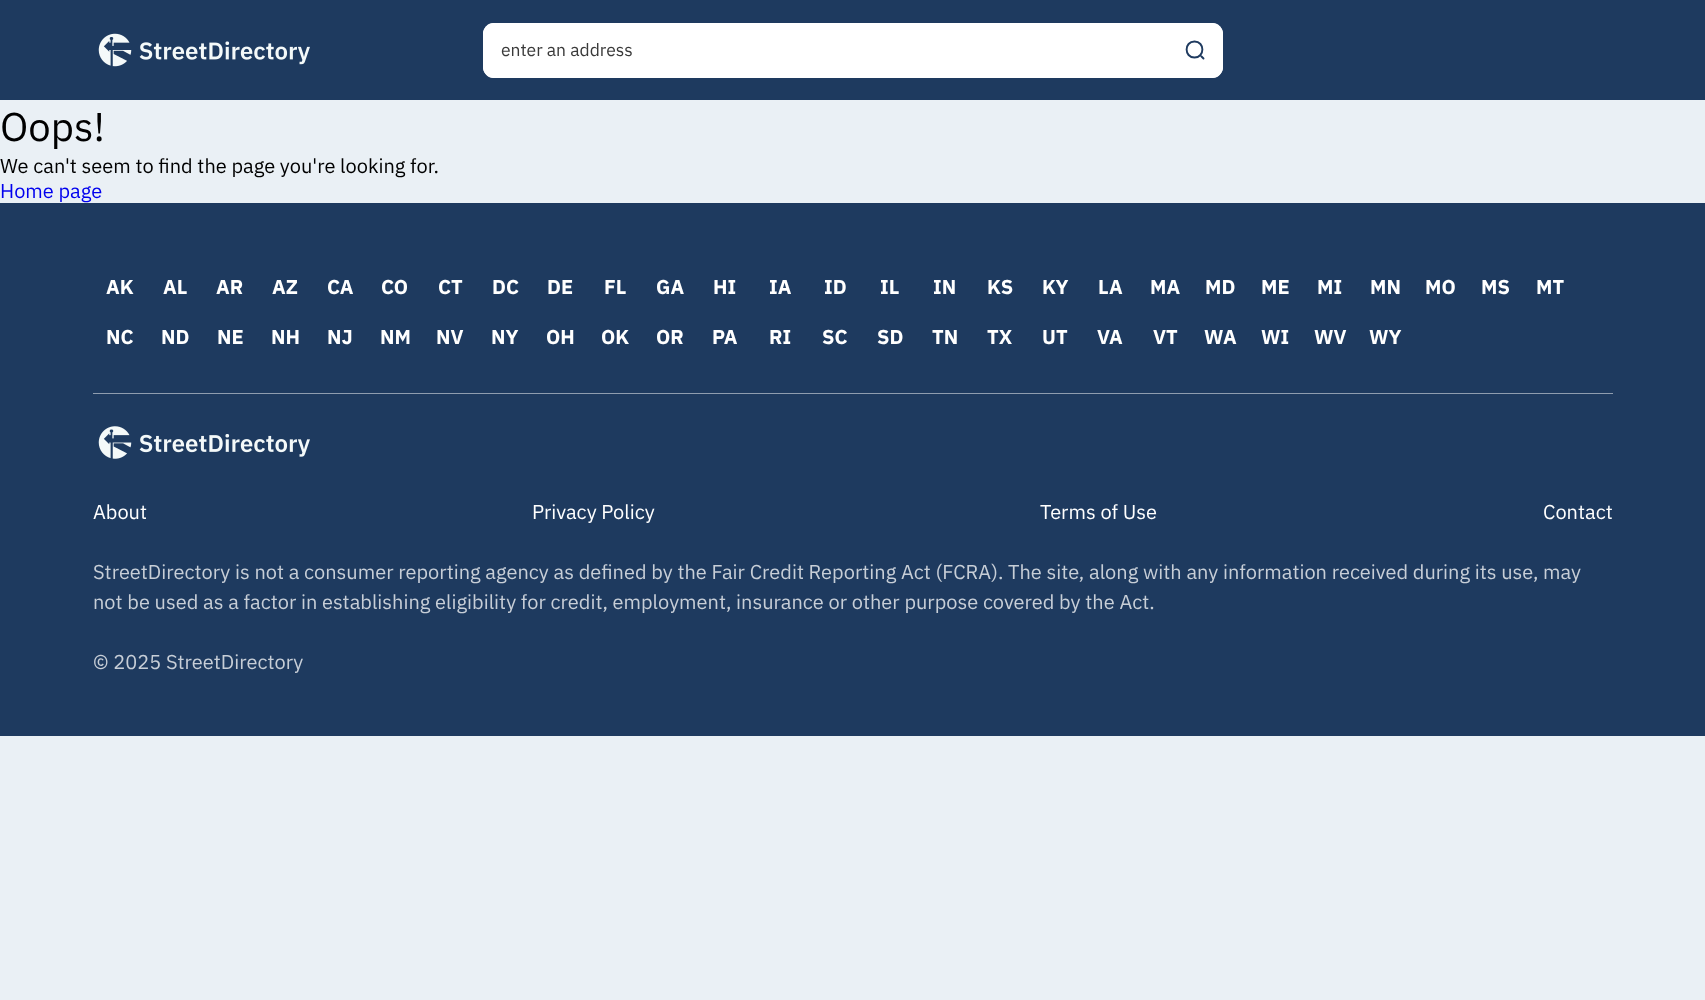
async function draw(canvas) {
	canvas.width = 1705;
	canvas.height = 1000;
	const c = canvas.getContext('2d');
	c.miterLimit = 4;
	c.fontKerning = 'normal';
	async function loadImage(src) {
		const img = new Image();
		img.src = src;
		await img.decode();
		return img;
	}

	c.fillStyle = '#eaf0f5';
	c.fillRect(0, 0, 1705, 1000);
	c.fillStyle = '#1e3a5f';
	c.fillRect(0, 0, 1705, 100);
	c.drawImage(await loadImage('img1.png'), 98, 33, 212, 34);
	c.fillStyle = '#fff';
	c.beginPath();
	c.roundRect(483, 23, 740, 55, 11);
	c.fill();
	c.beginPath();
	c.roundRect(483, 23, 683, 55, 11);
	c.fill();
	c.font = '17.5px IBM Plex Sans';
	c.fillStyle = '#3a3a3a';
	c.fillText('enter an address', 501, 56);
	c.fillStyle = '#fff';
	c.beginPath();
	c.roundRect(1168, 23, 55, 55, 11);
	c.fill();
	c.beginPath();
	c.moveTo(1194.5, 57.5);
	c.bezierCurveTo(1205, 57.5, 1205, 41.5, 1194.5, 41.5);
	c.bezierCurveTo(1184, 41.5, 1184, 57.5, 1194.5, 57.5);
	c.closePath();
	c.moveTo(1203.5, 58.5);
	c.lineTo(1201.5, 56.5);
	c.strokeStyle = '#1e3a5f';
	c.lineWidth = 1.9;
	c.lineCap = 'round';
	c.lineJoin = 'round';
	c.stroke();
	c.font = '40px IBM Plex Sans';
	c.fillStyle = '#000';
	c.fillText('Oops!', 0, 141);
	c.font = '20px IBM Plex Sans';
	c.fillText('We can\'t seem to find the page you\'re looking for.', 0, 173);
	c.fillStyle = '#00e';
	c.fillText('Home page', 0, 198);
	c.fillStyle = '#1e3a5f';
	c.fillRect(0, 203, 1705, 533);
	c.font = 'bold 20px IBM Plex Sans';
	c.fillStyle = '#fff';
	for (const [text, x, y] of [
		['AK', 106, 294],
		['AL', 163, 294],
		['AR', 216, 294],
		['AZ', 272, 294],
		['CA', 327, 294],
		['CO', 381, 294],
		['CT', 438, 294],
		['DC', 492, 294],
		['DE', 547, 294],
		['FL', 604, 294],
		['GA', 656, 294],
		['HI', 713, 294],
		['IA', 769, 294],
		['ID', 824, 294],
		['IL', 880, 294],
		['IN', 933, 294],
		['KS', 987, 294],
		['KY', 1042, 294],
		['LA', 1098, 294],
		['MA', 1150, 294],
		['MD', 1205, 294],
		['ME', 1261, 294],
		['MI', 1317, 294],
		['MN', 1370, 294],
		['MO', 1425, 294],
		['MS', 1481, 294],
		['MT', 1536, 294],
		['NC', 106, 344],
		['ND', 161, 344],
		['NE', 217, 344],
		['NH', 271, 344],
		['NJ', 327, 344],
		['NM', 380, 344],
		['NV', 436, 344],
		['NY', 491, 344],
		['OH', 546, 344],
		['OK', 601, 344],
		['OR', 656, 344],
		['PA', 712, 344],
		['RI', 769, 344],
		['SC', 822, 344],
		['SD', 877, 344],
		['TN', 932, 344],
		['TX', 987, 344],
		['UT', 1042, 344],
		['VA', 1097, 344],
		['VT', 1153, 344],
		['WA', 1204, 344],
		['WI', 1261, 344],
		['WV', 1314, 344],
		['WY', 1369, 344],
	]) {
		c.fillText(text, x, y);
	}
	c.fillStyle = '#8f9daf';
	c.fillRect(93, 393, 1520, 1);
	c.drawImage(await loadImage('img2.png'), 98, 426, 212, 33);
	c.font = '20px IBM Plex Sans';
	c.fillStyle = '#fff';
	for (const [text, x, y] of [
		['About', 93, 519],
		['Privacy Policy', 532, 519],
		['Terms of Use', 1040, 519],
		['Contact', 1543, 519],
	]) {
		c.fillText(text, x, y);
	}
	c.fillStyle = '#c7ced7';
	for (const [text, x, y] of [
		['StreetDirectory is not a consumer reporting agency as defined by the Fair Credit Reporting Act (FCRA). The site, along with any information received during its use, may', 93, 579],
		['not be used as a factor in establishing eligibility for credit, employment, insurance or other purpose covered by the Act.', 93, 609],
		['© 2025 StreetDirectory', 93, 669],
	]) {
		c.fillText(text, x, y);
	}
}

draw(document.querySelector('canvas'));
